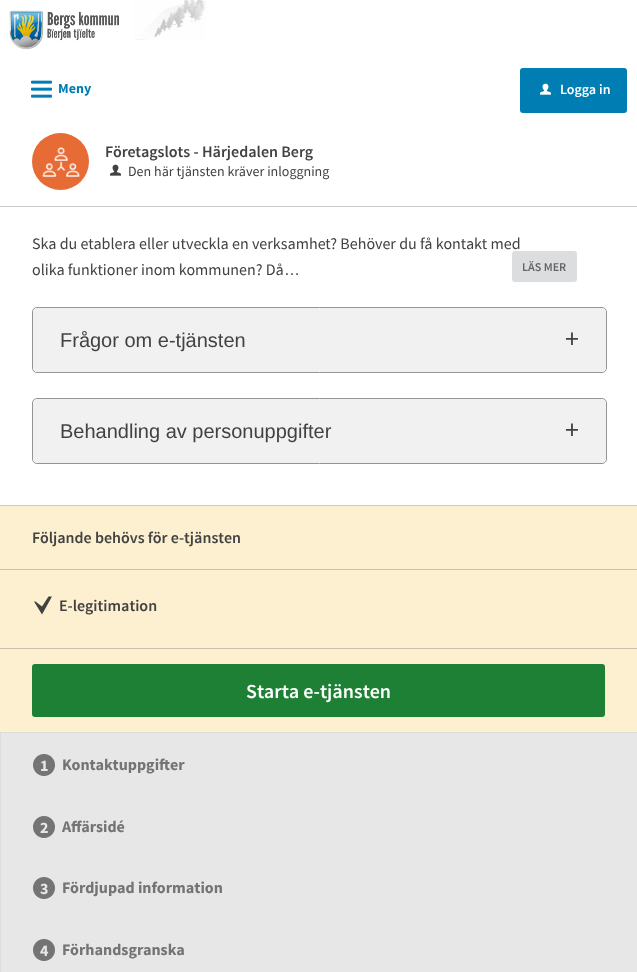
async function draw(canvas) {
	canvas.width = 637;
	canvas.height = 972;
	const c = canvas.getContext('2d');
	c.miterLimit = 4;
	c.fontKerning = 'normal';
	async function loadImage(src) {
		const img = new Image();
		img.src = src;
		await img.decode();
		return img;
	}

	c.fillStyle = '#fff';
	c.fillRect(0, 0, 637, 972);
	c.drawImage(await loadImage('img1.png'), 9, 10, 110, 40);
	c.drawImage(await loadImage('img2.png'), 134, 0, 72, 40);
	c.drawImage(await loadImage('img3.png'), 31, 80, 21, 18);
	c.font = 'bold 14px Source Sans Pro';
	c.fillStyle = '#007eb3';
	c.fillText('Meny', 58, 93);
	c.beginPath();
	c.roundRect(520, 68, 107, 45, 3);
	c.fill();
	c.drawImage(await loadImage('img4.png'), 540, 83, 11, 12);
	c.font = '600 14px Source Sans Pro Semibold';
	c.fillStyle = '#fff';
	c.fillText('Logga in', 560, 94);
	c.drawImage(await loadImage('img5.png'), 32, 133, 57, 57);
	c.font = '600 16px Source Sans Pro Semibold';
	c.fillStyle = '#424242';
	c.fillText('Företagslots - Härjedalen Berg', 105, 157);
	c.drawImage(await loadImage('img6.png'), 110, 164, 11, 12);
	c.font = '14px Source Sans Pro';
	c.fillText('Den här tjänsten kräver inloggning', 128, 176);
	c.fillStyle = '#cacaca';
	c.fillRect(0, 206, 637, 1);
	c.font = '16px Source Sans Pro';
	c.fillStyle = '#424242';
	c.fillText('Ska du etablera eller utveckla en verksamhet? Behöver du få kontakt med', 32, 249);
	c.fillText('olika funktioner inom kommunen? Då', 32, 275);
	c.font = '16px Liberation Sans';
	c.fillText('…', 284, 275);
	c.fillStyle = '#dcddde';
	c.beginPath();
	c.roundRect(512, 251, 65, 31, 3);
	c.fill();
	c.font = '600 12px Source Sans Pro Semibold';
	c.fillStyle = '#656565';
	c.fillText('LÄS MER', 522, 271);
	c.beginPath();
	c.roundRect(32.5, 307.5, 574, 65, 4.5);
	c.strokeStyle = '#949494';
	c.stroke();
	c.fillStyle = '#f1f1f1';
	c.beginPath();
	c.roundRect(33, 308, 573, 64, 5);
	c.fill();
	c.font = '20px Liberation Sans';
	c.fillStyle = '#424242';
	c.fillText('Frågor om e-tjänsten', 60, 347);
	c.font = '28px Source Sans Pro';
	c.fillText('+', 565, 348);
	c.beginPath();
	c.roundRect(32.5, 398.5, 574, 65, 4.5);
	c.stroke();
	c.fillStyle = '#f1f1f1';
	c.beginPath();
	c.roundRect(33, 399, 573, 64, 5);
	c.fill();
	c.font = '20px Liberation Sans';
	c.fillStyle = '#424242';
	c.fillText('Behandling av personuppgifter', 60, 438);
	c.font = '28px Source Sans Pro';
	c.fillText('+', 565, 439);
	for (const [x, y, w, h, color] of [
		[0, 506, 637, 226, '#fcf0d0'],
		[0, 505, 637, 1, '#cacaca'],
		[0, 569, 637, 1, '#c7c2a9'],
	]) {
		c.fillStyle = color;
		c.fillRect(x, y, w, h);
	}
	c.font = '600 16px Source Sans Pro Semibold';
	c.fillStyle = '#424242';
	c.fillText('Följande behövs för e-tjänsten', 32, 543);
	c.beginPath();
	c.moveTo(34, 601.5);
	c.lineTo(42, 614.5);
	c.lineTo(52, 596.5);
	c.lineTo(48.5, 596.5);
	c.lineTo(42, 606.5);
	c.lineTo(35.5, 601.5);
	c.closePath();
	c.fill();
	c.fillText('E-legitimation', 59, 611);
	c.fillStyle = '#c7c2a9';
	c.fillRect(0, 648, 637, 1);
	c.fillStyle = '#1d8034';
	c.beginPath();
	c.roundRect(32, 664, 573, 53, 3);
	c.fill();
	c.font = '600 20px Source Sans Pro Semibold';
	c.fillStyle = '#fff';
	c.fillText('Starta e-tjänsten', 246, 698);
	for (const [x, y, w, h, color] of [
		[0, 732, 1, 240, '#ddd'],
		[1, 732, 636, 1, '#ddd'],
		[1, 733, 636, 239, '#e7e7e7'],
	]) {
		c.fillStyle = color;
		c.fillRect(x, y, w, h);
	}
	c.drawImage(await loadImage('img7.png'), 33, 754, 22, 22);
	c.font = 'bold 16px Source Sans Pro';
	c.fillText('1', 40, 771);
	c.fillStyle = '#747474';
	c.fillText('Kontaktuppgifter', 62, 770);
	c.drawImage(await loadImage('img7.png'), 33, 816, 22, 22);
	c.fillStyle = '#e7e7e7';
	c.fillText('2', 40, 833);
	c.fillStyle = '#747474';
	c.fillText('Affärsidé', 62, 832);
	c.drawImage(await loadImage('img7.png'), 33, 877, 22, 22);
	c.fillStyle = '#e7e7e7';
	c.fillText('3', 40, 894);
	c.fillStyle = '#747474';
	c.fillText('Fördjupad information', 62, 893);
	c.drawImage(await loadImage('img7.png'), 33, 939, 22, 22);
	c.fillStyle = '#e7e7e7';
	c.fillText('4', 40, 956);
	c.fillStyle = '#747474';
	c.fillText('Förhandsgranska', 62, 955);
}

draw(document.querySelector('canvas'));
